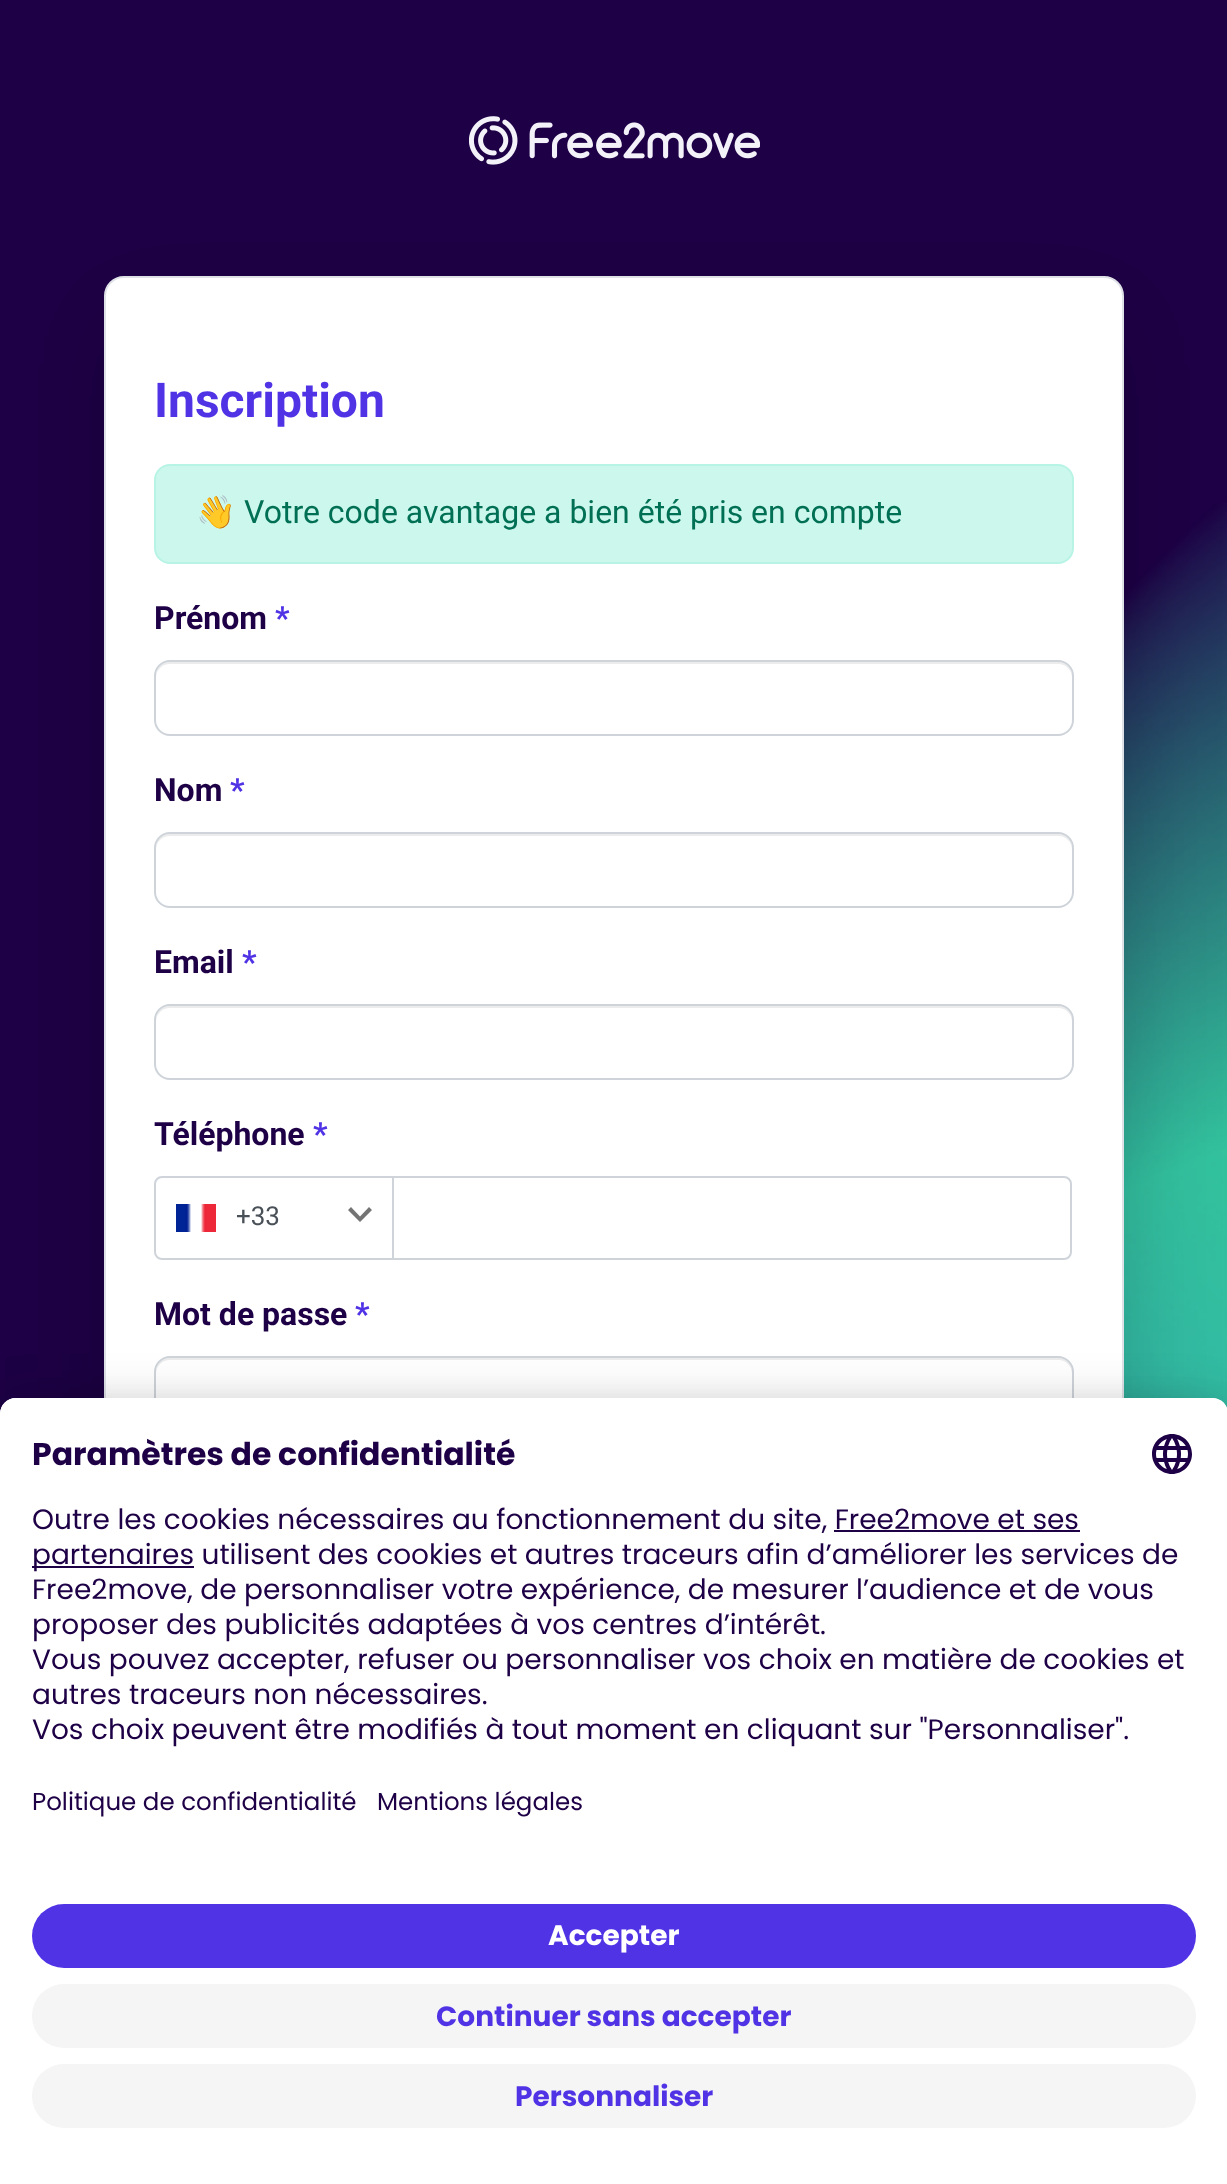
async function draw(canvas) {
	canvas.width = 1227;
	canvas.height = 2184;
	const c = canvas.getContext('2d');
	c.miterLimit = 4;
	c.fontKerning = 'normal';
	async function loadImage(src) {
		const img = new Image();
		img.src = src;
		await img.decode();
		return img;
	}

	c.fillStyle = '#1e0046';
	c.fillRect(0, 0, 1227, 2184);
	c.drawImage(await loadImage('img1.png'), 1124, 503, 103, 906);
	c.drawImage(await loadImage('img2.png'), 469, 116, 291, 49);
	c.fillStyle = '#0000002e';
	c.filter = 'blur(48px)';
	c.beginPath();
	c.roundRect(104, 308, 1020, 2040, 20);
	c.fill();
	c.filter = 'none';
	c.fillStyle = '#fff';
	c.beginPath();
	c.roundRect(105, 277, 1018, 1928, 19);
	c.fill();
	c.strokeStyle = '#dee2e6';
	c.lineWidth = 2;
	c.stroke();
	c.font = 'bold 48px Roboto';
	c.fillStyle = '#5133e6';
	c.fillText('Inscription', 154, 417);
	c.fillStyle = '#ccf7ed';
	c.beginPath();
	c.roundRect(155, 465, 918, 98, 15);
	c.fill();
	c.strokeStyle = '#b8f4e5';
	c.stroke();
	c.font = '32px Noto Color Emoji';
	c.fillStyle = '#007055';
	c.fillText('👋', 196, 523);
	c.font = '32px Roboto';
	c.fillText('Votre code avantage a bien été pris en compte', 244, 523);
	c.font = 'bold 32px Roboto';
	c.fillStyle = '#1e0046';
	c.fillText('Prénom', 154, 629);
	c.fillStyle = '#5133e6';
	c.fillText('*', 275, 629);
	c.fillStyle = '#ececec';
	c.beginPath();
	c.moveTo(170, 664);
	c.lineTo(1058, 664);
	c.bezierCurveTo(1066, 664, 1072, 670, 1072, 678);
	c.lineTo(1072, 676);
	c.bezierCurveTo(1072, 668, 1066, 662, 1058, 662);
	c.lineTo(170, 662);
	c.bezierCurveTo(162, 662, 156, 668, 156, 676);
	c.lineTo(156, 678);
	c.bezierCurveTo(156, 670, 162, 664, 170, 664);
	c.closePath();
	c.fill();
	c.beginPath();
	c.roundRect(155, 661, 918, 74, 15);
	c.strokeStyle = '#ced4da';
	c.stroke();
	c.fillStyle = '#1e0046';
	c.fillText('Nom', 154, 801);
	c.fillStyle = '#5133e6';
	c.fillText('*', 230, 801);
	c.fillStyle = '#ececec';
	c.beginPath();
	c.moveTo(170, 836);
	c.lineTo(1058, 836);
	c.bezierCurveTo(1066, 836, 1072, 842, 1072, 850);
	c.lineTo(1072, 848);
	c.bezierCurveTo(1072, 840, 1066, 834, 1058, 834);
	c.lineTo(170, 834);
	c.bezierCurveTo(162, 834, 156, 840, 156, 848);
	c.lineTo(156, 850);
	c.bezierCurveTo(156, 842, 162, 836, 170, 836);
	c.closePath();
	c.fill();
	c.beginPath();
	c.roundRect(155, 833, 918, 74, 15);
	c.stroke();
	c.fillStyle = '#1e0046';
	c.fillText('Email', 154, 973);
	c.fillStyle = '#5133e6';
	c.fillText('*', 242, 973);
	c.fillStyle = '#ececec';
	c.beginPath();
	c.moveTo(170, 1008);
	c.lineTo(1058, 1008);
	c.bezierCurveTo(1066, 1008, 1072, 1014, 1072, 1022);
	c.lineTo(1072, 1020);
	c.bezierCurveTo(1072, 1012, 1066, 1006, 1058, 1006);
	c.lineTo(170, 1006);
	c.bezierCurveTo(162, 1006, 156, 1012, 156, 1020);
	c.lineTo(156, 1022);
	c.bezierCurveTo(156, 1014, 162, 1008, 170, 1008);
	c.closePath();
	c.fill();
	c.beginPath();
	c.roundRect(155, 1005, 918, 74, 15);
	c.stroke();
	c.fillStyle = '#1e0046';
	c.fillText('Téléphone', 154, 1145);
	c.fillStyle = '#5133e6';
	c.fillText('*', 313, 1145);
	c.beginPath();
	c.roundRect(155, 1177, 238, 82, [7, 0, 0, 7]);
	c.stroke();
	c.drawImage(await loadImage('img3.png'), 176, 1204, 40, 28);
	c.font = '26px Roboto';
	c.fillStyle = '#495057';
	c.fillText('+33', 236, 1225);
	c.fillStyle = '#747474';
	c.beginPath();
	c.moveTo(351, 1207);
	c.lineTo(360, 1216.5);
	c.lineTo(369, 1207);
	c.lineTo(372, 1210);
	c.lineTo(360, 1222);
	c.lineTo(348, 1210);
	c.closePath();
	c.fill();
	c.fillStyle = '#fff';
	c.beginPath();
	c.roundRect(393, 1177, 678, 82, [0, 7, 7, 0]);
	c.fill();
	c.stroke();
	c.font = 'bold 32px Roboto';
	c.fillStyle = '#1e0046';
	c.fillText('Mot de passe', 154, 1325);
	c.fillStyle = '#5133e6';
	c.fillText('*', 355, 1325);
	c.fillStyle = '#ececec';
	c.beginPath();
	c.moveTo(170, 1360);
	c.lineTo(1058, 1360);
	c.bezierCurveTo(1066, 1360, 1072, 1366, 1072, 1374);
	c.lineTo(1072, 1372);
	c.bezierCurveTo(1072, 1364, 1066, 1358, 1058, 1358);
	c.lineTo(170, 1358);
	c.bezierCurveTo(162, 1358, 156, 1364, 156, 1372);
	c.lineTo(156, 1374);
	c.bezierCurveTo(156, 1366, 162, 1360, 170, 1360);
	c.closePath();
	c.fill();
	c.beginPath();
	c.roundRect(155, 1357, 918, 74, 15);
	c.stroke();
	c.fillStyle = '#0000004d';
	c.filter = 'blur(28px)';
	c.beginPath();
	c.roundRect(0, 1438, 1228, 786, 16);
	c.fill();
	c.filter = 'none';
	c.fillStyle = '#00000038';
	c.filter = 'blur(26px)';
	c.beginPath();
	c.roundRect(0, 1408, 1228, 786, 16);
	c.fill();
	c.filter = 'none';
	c.fillStyle = '#fff';
	c.beginPath();
	c.moveTo(16, 1398);
	c.lineTo(1212, 1398);
	c.bezierCurveTo(1221, 1398, 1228, 1405, 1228, 1414);
	c.lineTo(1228, 2184);
	c.lineTo(0, 2184);
	c.lineTo(0, 1414);
	c.bezierCurveTo(0, 1405, 7, 1398, 16, 1398);
	c.closePath();
	c.fill();
	c.beginPath();
	c.moveTo(16, 1398);
	c.lineTo(1212, 1398);
	c.bezierCurveTo(1221, 1398, 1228, 1405, 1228, 1414);
	c.lineTo(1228, 1880);
	c.lineTo(0, 1880);
	c.lineTo(0, 1414);
	c.bezierCurveTo(0, 1405, 7, 1398, 16, 1398);
	c.closePath();
	c.fill();
	c.font = 'bold 31.5px Poppins';
	c.fillStyle = '#1e0046';
	c.fillText('Paramètres de confidentialité', 32, 1465);
	c.drawImage(await loadImage('img4.png'), 1152, 1434, 40, 40);
	c.font = '28px Poppins';
	c.fillText('Outre les cookies nécessaires au fonctionnement du site, Free2move et ses', 32, 1529);
	c.fillRect(32, 1566, 162, 2);
	c.fillText('partenaires utilisent des cookies et autres traceurs afin d’améliorer les services de', 32, 1564);
	c.fillRect(834, 1530, 246, 2);
	for (const [text, x, y] of [
		['Free2move, de personnaliser votre expérience, de mesurer l’audience et de vous', 32, 1599],
		['proposer des publicités adaptées à vos centres d’intérêt.', 32, 1634],
		['Vous pouvez accepter, refuser ou personnaliser vos choix en matière de cookies et', 32, 1669],
		['autres traceurs non nécessaires.', 32, 1704],
		['Vos choix peuvent être modifiés à tout moment en cliquant sur "Personnaliser".', 32, 1739],
	]) {
		c.fillText(text, x, y);
	}
	c.font = '24.5px Poppins';
	c.fillText('Politique de confidentialité', 32, 1810);
	c.fillText('Mentions légales', 377, 1810);
	c.fillStyle = '#5133e6';
	c.beginPath();
	c.roundRect(32, 1904, 1164, 64, 32);
	c.fill();
	c.font = 'bold 28px Poppins';
	c.fillStyle = '#fff';
	c.fillText('Accepter', 548, 1945);
	c.fillStyle = '#f5f5f5';
	c.beginPath();
	c.roundRect(32, 1984, 1164, 64, 32);
	c.fill();
	c.fillStyle = '#5133e6';
	c.fillText('Continuer sans accepter', 436, 2026);
	c.fillStyle = '#f5f5f5';
	c.beginPath();
	c.roundRect(32, 2064, 1164, 64, 32);
	c.fill();
	c.fillStyle = '#5133e6';
	c.fillText('Personnaliser', 515, 2106);
}

draw(document.querySelector('canvas'));
